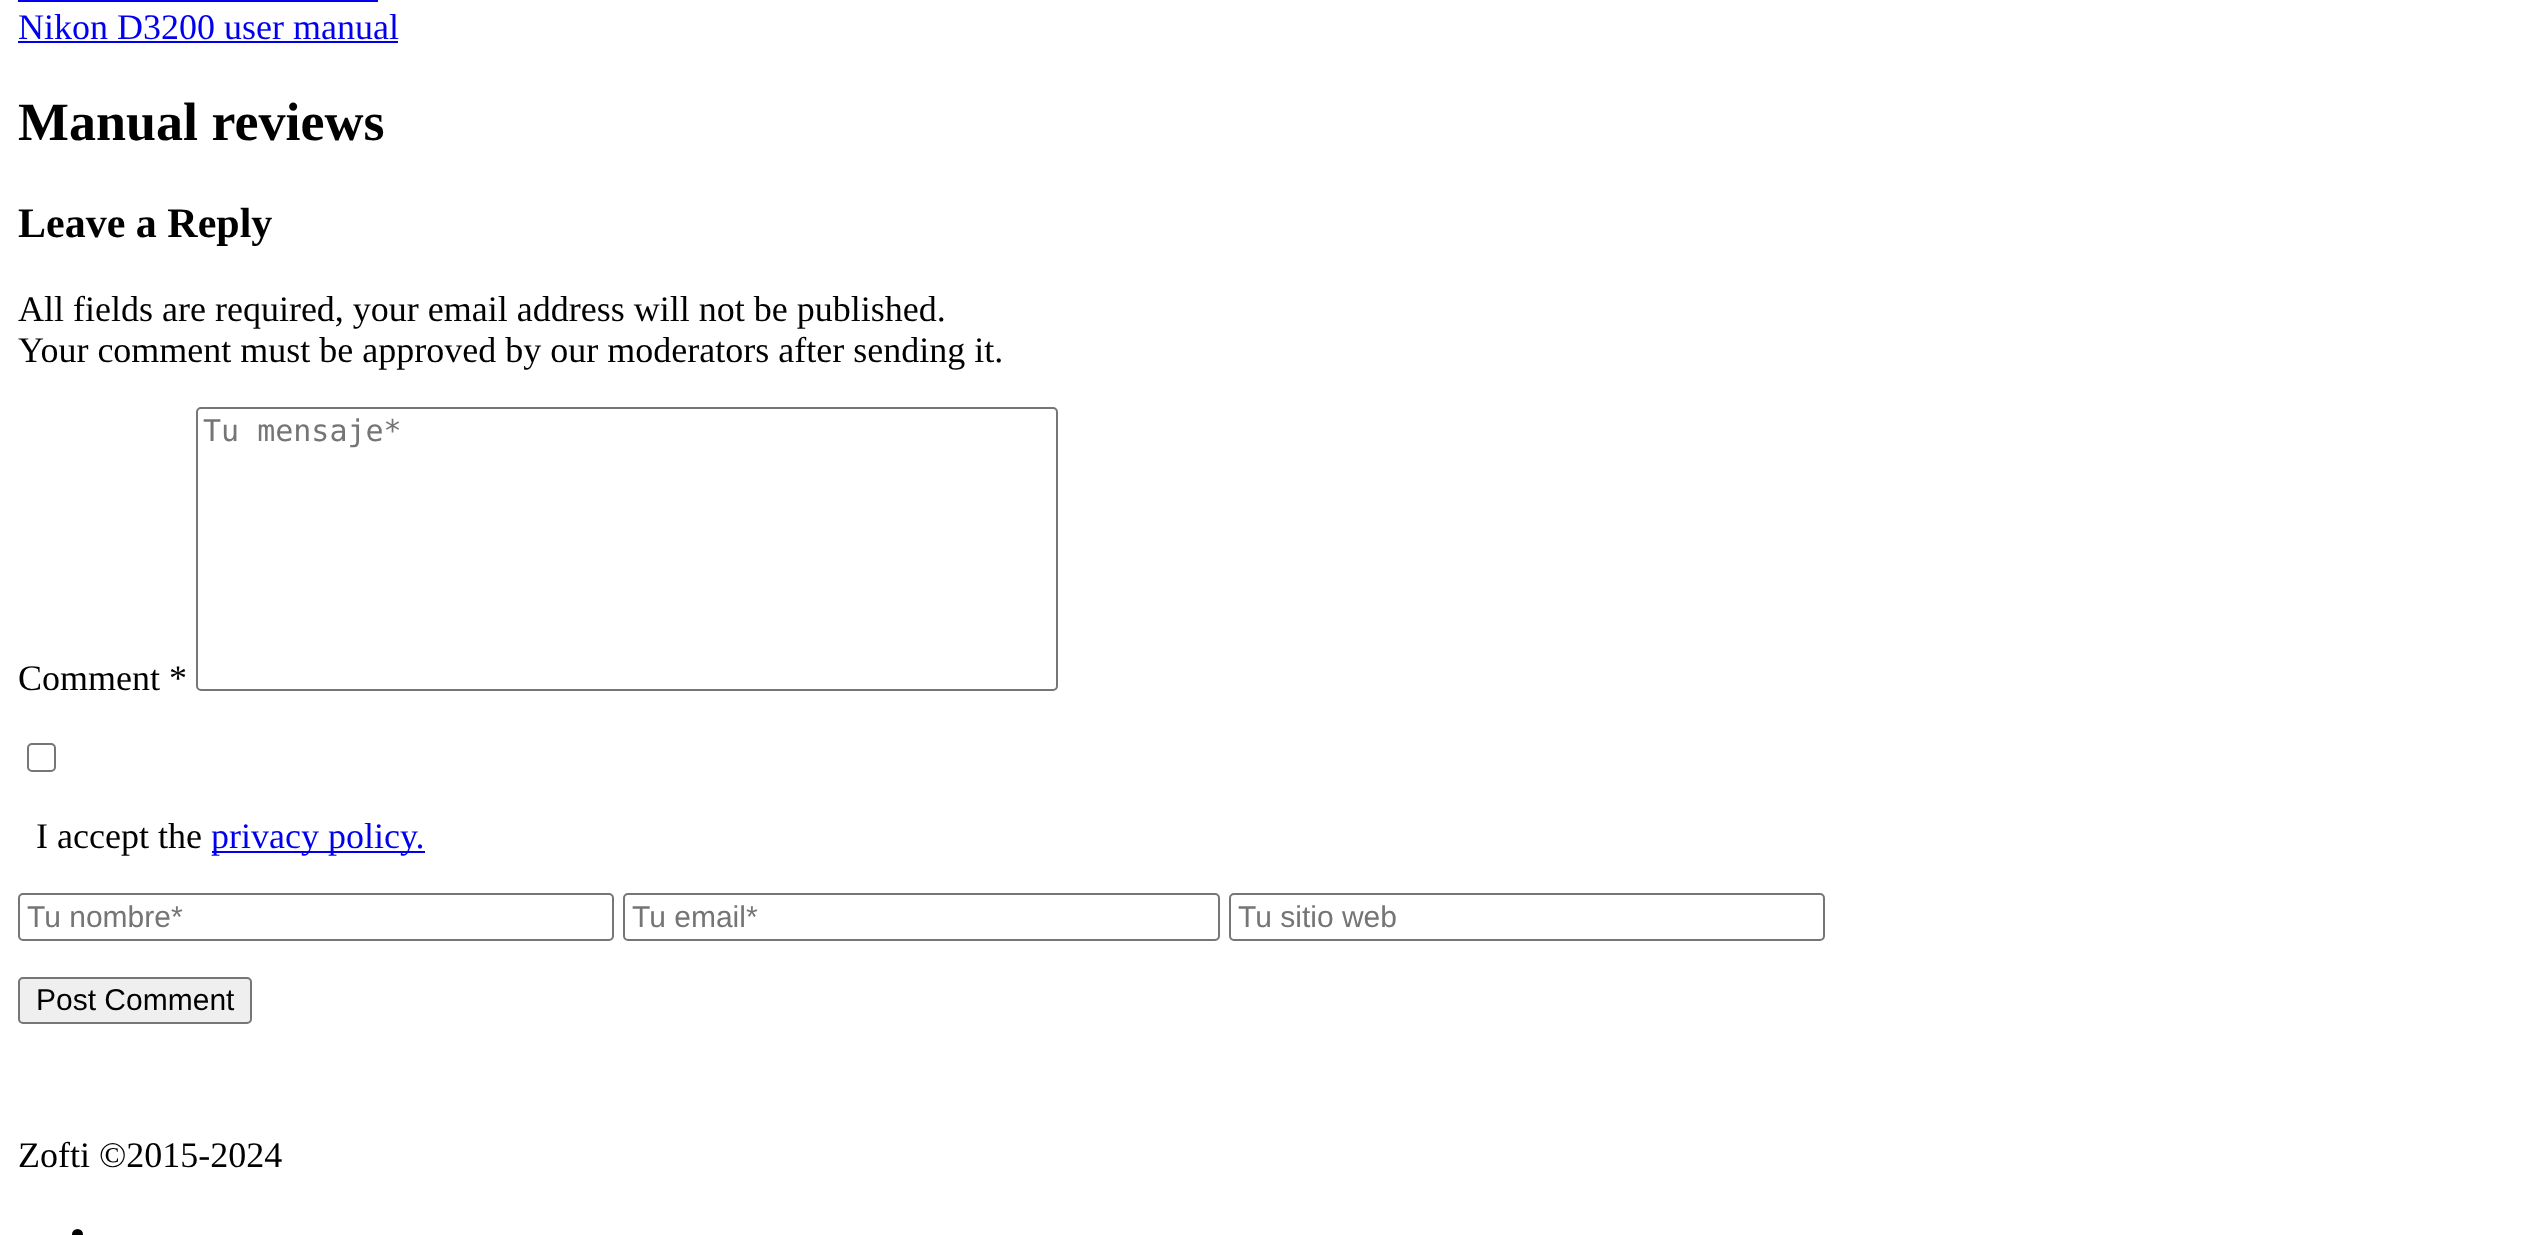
async function draw(canvas) {
	canvas.width = 2537;
	canvas.height = 1235;
	const c = canvas.getContext('2d');
	c.miterLimit = 4;
	c.fontKerning = 'normal';

	c.fillStyle = '#fff';
	c.fillRect(0, 0, 2537, 1235);
	c.fillStyle = '#00e';
	c.fillRect(18, 0, 360, 2);
	c.font = '36px Liberation Serif';
	c.fillText('Nikon D3200 user manual', 18, 39);
	c.fillRect(18, 41, 380, 2);
	c.font = 'bold 54px Liberation Serif';
	c.fillStyle = '#000';
	c.fillText('Manual reviews', 18, 140);
	c.font = 'bold 42px Liberation Serif';
	c.fillText('Leave a Reply', 18, 237);
	c.font = '36px Liberation Serif';
	c.fillText('All fields are required, your email address will not be published.', 18, 321);
	c.fillText('Your comment must be approved by our moderators after sending it.', 18, 362);
	c.beginPath();
	c.roundRect(197, 408, 860, 282, 4);
	c.strokeStyle = '#767676';
	c.lineWidth = 2;
	c.stroke();
	c.font = '30px DejaVu Sans Mono';
	c.fillStyle = '#757575';
	c.fillText('Tu mensaje*', 203, 441);
	c.font = '36px Liberation Serif';
	c.fillStyle = '#000';
	c.fillText('Comment *', 18, 690);
	c.beginPath();
	c.roundRect(28, 744, 27, 27, 4);
	c.stroke();
	c.fillText('I accept the', 36, 848);
	c.fillStyle = '#00e';
	c.fillRect(212, 851, 213, 2);
	c.fillText('privacy policy.', 211, 848);
	c.beginPath();
	c.roundRect(19, 894, 594, 46, 4);
	c.stroke();
	c.font = '30px Liberation Sans';
	c.fillStyle = '#757575';
	c.fillText('Tu nombre*', 27, 927);
	c.beginPath();
	c.roundRect(624, 894, 595, 46, 4);
	c.stroke();
	c.fillText('Tu email*', 632, 927);
	c.beginPath();
	c.roundRect(1230, 894, 594, 46, 4);
	c.stroke();
	c.fillText('Tu sitio web', 1238, 927);
	c.fillStyle = '#efefef';
	c.beginPath();
	c.roundRect(19, 978, 232, 45, 4);
	c.fill();
	c.stroke();
	c.fillStyle = '#000';
	c.fillText('Post Comment', 36, 1010);
	c.font = '36px Liberation Serif';
	c.fillText('Zofti ©2015-2024', 18, 1167);
	c.beginPath();
	c.arc(77.5, 1234.5, 5.5, 0, 2 * Math.PI);
	c.fill();
}

draw(document.querySelector('canvas'));
